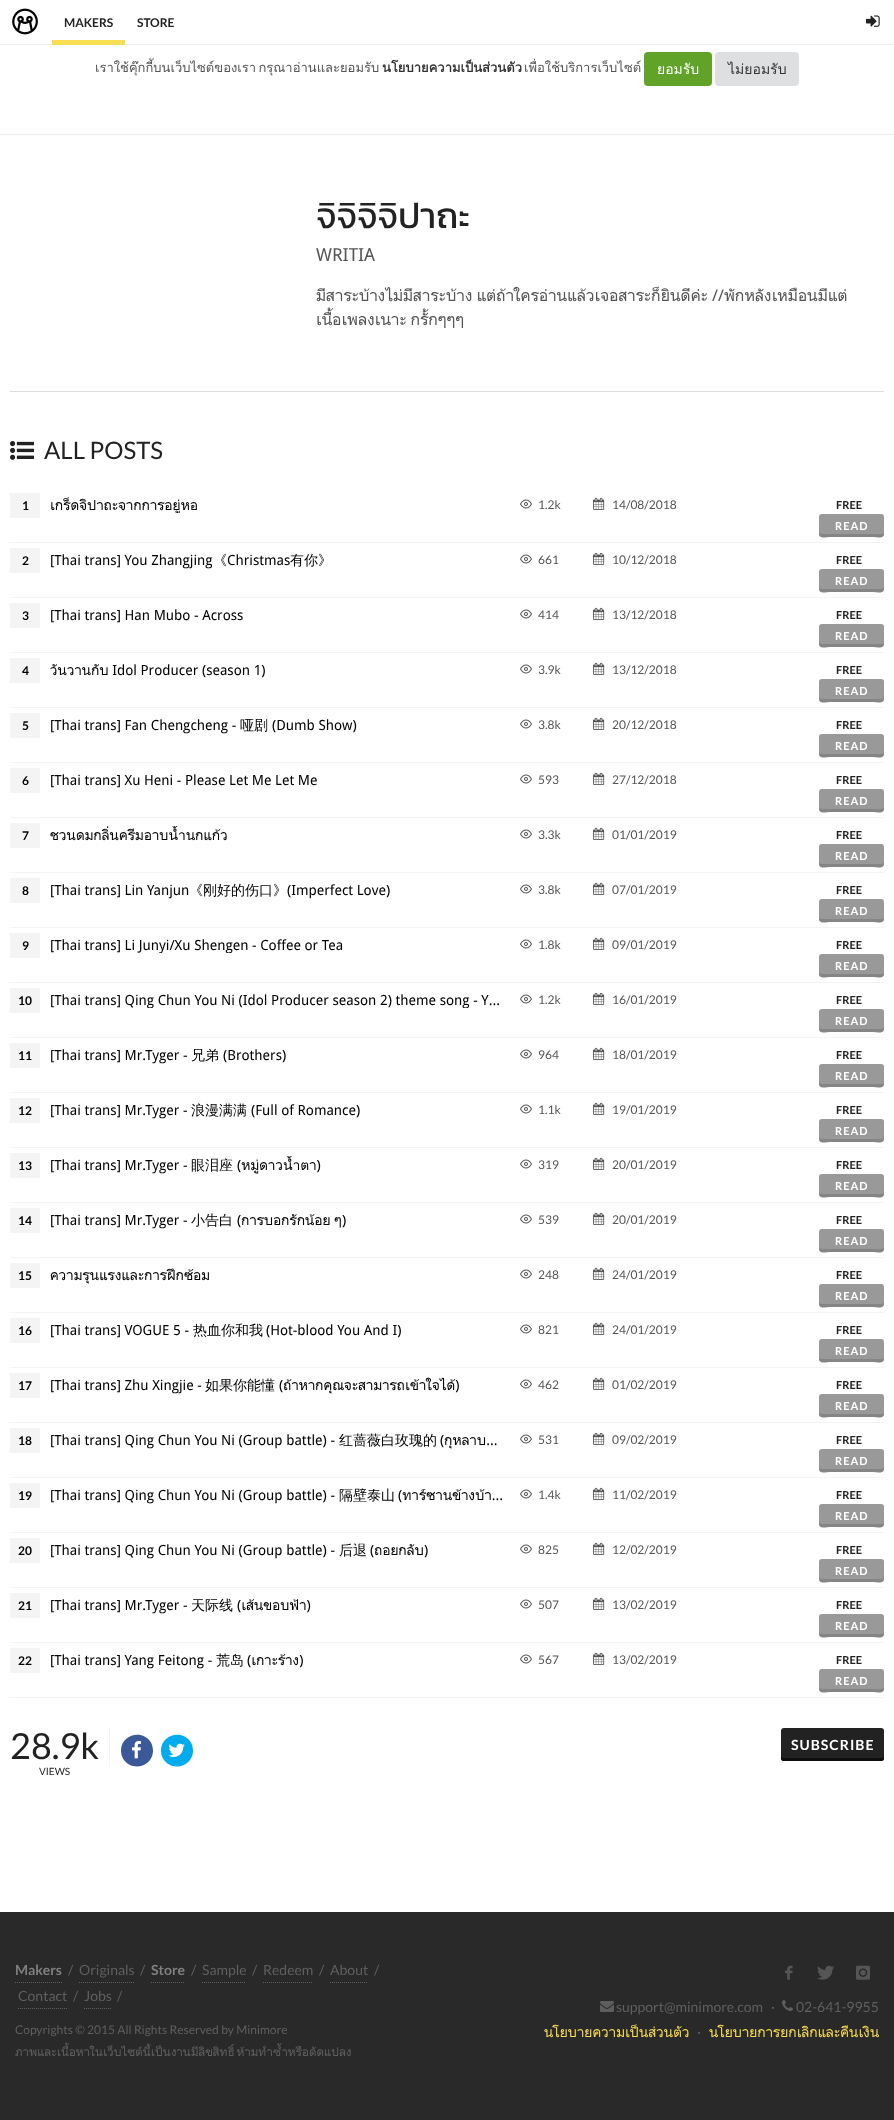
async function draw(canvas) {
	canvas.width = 894;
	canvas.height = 2120;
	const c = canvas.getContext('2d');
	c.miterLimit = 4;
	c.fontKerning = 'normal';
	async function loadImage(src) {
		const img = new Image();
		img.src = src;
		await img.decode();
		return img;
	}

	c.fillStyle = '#fff';
	c.fillRect(0, 0, 894, 2120);
	c.fillStyle = '#eee';
	c.fillRect(0, 44, 894, 1);
	c.drawImage(await loadImage('img1.png'), 12, 8, 26, 27);
	c.fillStyle = '#f9dd53';
	c.fillRect(52, 40, 73, 5);
	c.font = 'bold 12px Lato';
	c.fillStyle = '#222';
	c.fillText('MAKERS', 64, 27);
	c.fillText('STORE', 137, 27);
	c.drawImage(await loadImage('img2.png'), 866, 15, 14, 12);
	c.fillStyle = '#eee';
	c.fillRect(0, 134, 894, 1);
	c.wordSpacing = '-2px';
	c.font = '13px Loma';
	c.fillStyle = '#555';
	c.fillText('เราใช้คุ๊กกี้บนเว็บไซต์ของเรา กรุณาอ่านและยอมรับ', 95, 72);
	c.wordSpacing = '0px';
	c.font = 'bold 13px Loma';
	c.fillStyle = '#333';
	c.fillText('นโยบายความเป็นส่วนตัว', 382, 72);
	c.font = '13px Loma';
	c.fillStyle = '#555';
	c.fillText('เพื่อใช้บริการเว็บไซต์', 524, 72);
	c.fillStyle = '#61a229';
	c.beginPath();
	c.roundRect(644, 52, 68, 34, 4);
	c.fill();
	c.font = '14px Loma';
	c.fillStyle = '#fff';
	c.fillText('ยอมรับ', 657, 74);
	c.fillStyle = '#dedfe0';
	c.beginPath();
	c.roundRect(715, 52, 84, 34, 4);
	c.fill();
	c.fillStyle = '#333';
	c.fillText('ไม่ยอมรับ', 728, 74);
	c.fillStyle = '#ddd';
	c.fillRect(10, 391, 874, 1);
	c.font = '36px Kanit';
	c.fillStyle = '#222';
	c.fillText('จิจิจิจิปาถะ', 316, 228);
	c.font = '18px Droid Sans';
	c.fillStyle = '#555';
	c.fillText('WRITIA', 316, 261);
	c.font = '16px Droid Sans';
	c.fillText('มีสาระบ้างไม่มีสาระบ้าง แต่ถ้าใครอ่านแล้วเจอสาระก็ยินดีค่ะ //พักหลังเหมือนมีแต่', 316, 301);
	c.fillText('เนื้อเพลงเนาะ กรั้กๆๆๆ', 316, 325);
	c.drawImage(await loadImage('img3.png'), 10, 441, 24, 19);
	c.font = '24px Lato';
	c.fillStyle = '#222';
	c.fillText('ALL POSTS', 44, 459);
	c.fillStyle = '#f4f4f4';
	c.fillRect(10, 542, 874, 1);
	c.fillRect(10, 493, 30, 25);
	c.font = 'bold 12px Lato';
	c.fillStyle = '#000';
	c.fillText('1', 22, 510);
	c.save();
	c.beginPath();
	c.rect(50, 496, 470, 17);
	c.clip();
	c.font = '14px Droid Sans';
	c.fillText('เกร็ดจิปาถะจากการอยู่หอ', 50, 510);
	c.restore();
	c.drawImage(await loadImage('img4.png'), 520, 499, 12, 10);
	c.font = '12px Lato';
	c.fillStyle = '#555';
	c.fillText('1.2k', 538, 509);
	c.drawImage(await loadImage('img5.png'), 593, 497, 12, 13);
	c.fillText('14/08/2018', 612, 509);
	c.font = 'bold 11px Lato';
	c.fillStyle = '#222';
	c.fillText('FREE', 836, 509);
	c.fillStyle = '#999';
	c.beginPath();
	c.roundRect(819, 514, 65, 23, 3);
	c.fill();
	c.fillStyle = '#858585';
	c.beginPath();
	c.moveTo(819, 531);
	c.bezierCurveTo(819, 540, 823, 537, 832, 537);
	c.lineTo(871, 537);
	c.bezierCurveTo(880, 537, 884, 540, 884, 531);
	c.bezierCurveTo(884, 533, 883, 534, 881, 534);
	c.lineTo(822, 534);
	c.bezierCurveTo(820, 534, 819, 533, 819, 531);
	c.closePath();
	c.fill();
	c.letterSpacing = '1px';
	c.fillStyle = '#fff';
	c.fillText('READ', 835, 530);
	c.fillStyle = '#f4f4f4';
	c.fillRect(10, 597, 874, 1);
	c.fillRect(10, 548, 30, 25);
	c.letterSpacing = '0px';
	c.font = 'bold 12px Lato';
	c.fillStyle = '#000';
	c.fillText('2', 22, 565);
	c.font = '14px Droid Sans';
	c.fillText('[Thai trans] You Zhangjing', 50, 565);
	c.font = '500 14px WenQuanYi Zen Hei';
	c.fillText('《', 213, 565);
	c.font = '14px Droid Sans';
	c.fillText('Christmas', 227, 565);
	c.font = '500 14px WenQuanYi Zen Hei';
	c.fillText('有你》', 290, 565);
	c.drawImage(await loadImage('img4.png'), 520, 554, 12, 10);
	c.font = '12px Lato';
	c.fillStyle = '#555';
	c.fillText('661', 538, 564);
	c.drawImage(await loadImage('img5.png'), 593, 552, 12, 13);
	c.fillText('10/12/2018', 612, 564);
	c.font = 'bold 11px Lato';
	c.fillStyle = '#222';
	c.fillText('FREE', 836, 564);
	c.fillStyle = '#999';
	c.beginPath();
	c.roundRect(819, 569, 65, 23, 3);
	c.fill();
	c.fillStyle = '#858585';
	c.beginPath();
	c.moveTo(819, 586);
	c.bezierCurveTo(819, 595, 823, 592, 832, 592);
	c.lineTo(871, 592);
	c.bezierCurveTo(880, 592, 884, 595, 884, 586);
	c.bezierCurveTo(884, 588, 883, 589, 881, 589);
	c.lineTo(822, 589);
	c.bezierCurveTo(820, 589, 819, 588, 819, 586);
	c.closePath();
	c.fill();
	c.letterSpacing = '1px';
	c.fillStyle = '#fff';
	c.fillText('READ', 835, 585);
	c.fillStyle = '#f4f4f4';
	c.fillRect(10, 652, 874, 1);
	c.fillRect(10, 603, 30, 25);
	c.letterSpacing = '0px';
	c.font = 'bold 12px Lato';
	c.fillStyle = '#000';
	c.fillText('3', 22, 620);
	c.font = '14px Droid Sans';
	c.fillText('[Thai trans] Han Mubo - Across', 50, 620);
	c.drawImage(await loadImage('img4.png'), 520, 609, 12, 10);
	c.font = '12px Lato';
	c.fillStyle = '#555';
	c.fillText('414', 538, 619);
	c.drawImage(await loadImage('img5.png'), 593, 607, 12, 13);
	c.fillText('13/12/2018', 612, 619);
	c.font = 'bold 11px Lato';
	c.fillStyle = '#222';
	c.fillText('FREE', 836, 619);
	c.fillStyle = '#999';
	c.beginPath();
	c.roundRect(819, 624, 65, 23, 3);
	c.fill();
	c.fillStyle = '#858585';
	c.beginPath();
	c.moveTo(819, 641);
	c.bezierCurveTo(819, 650, 823, 647, 832, 647);
	c.lineTo(871, 647);
	c.bezierCurveTo(880, 647, 884, 650, 884, 641);
	c.bezierCurveTo(884, 643, 883, 644, 881, 644);
	c.lineTo(822, 644);
	c.bezierCurveTo(820, 644, 819, 643, 819, 641);
	c.closePath();
	c.fill();
	c.letterSpacing = '1px';
	c.fillStyle = '#fff';
	c.fillText('READ', 835, 640);
	c.fillStyle = '#f4f4f4';
	c.fillRect(10, 707, 874, 1);
	c.fillRect(10, 658, 30, 25);
	c.letterSpacing = '0px';
	c.font = 'bold 12px Lato';
	c.fillStyle = '#000';
	c.fillText('4', 22, 675);
	c.save();
	c.beginPath();
	c.rect(50, 661, 470, 17);
	c.clip();
	c.font = '14px Droid Sans';
	c.fillText('วันวานกับ Idol Producer (season 1)', 50, 675);
	c.restore();
	c.drawImage(await loadImage('img4.png'), 520, 664, 12, 10);
	c.font = '12px Lato';
	c.fillStyle = '#555';
	c.fillText('3.9k', 538, 674);
	c.drawImage(await loadImage('img5.png'), 593, 662, 12, 13);
	c.fillText('13/12/2018', 612, 674);
	c.font = 'bold 11px Lato';
	c.fillStyle = '#222';
	c.fillText('FREE', 836, 674);
	c.fillStyle = '#999';
	c.beginPath();
	c.roundRect(819, 679, 65, 23, 3);
	c.fill();
	c.fillStyle = '#858585';
	c.beginPath();
	c.moveTo(819, 696);
	c.bezierCurveTo(819, 705, 823, 702, 832, 702);
	c.lineTo(871, 702);
	c.bezierCurveTo(880, 702, 884, 705, 884, 696);
	c.bezierCurveTo(884, 698, 883, 699, 881, 699);
	c.lineTo(822, 699);
	c.bezierCurveTo(820, 699, 819, 698, 819, 696);
	c.closePath();
	c.fill();
	c.letterSpacing = '1px';
	c.fillStyle = '#fff';
	c.fillText('READ', 835, 695);
	c.fillStyle = '#f4f4f4';
	c.fillRect(10, 762, 874, 1);
	c.fillRect(10, 713, 30, 25);
	c.letterSpacing = '0px';
	c.font = 'bold 12px Lato';
	c.fillStyle = '#000';
	c.fillText('5', 22, 730);
	c.font = '14px Droid Sans';
	c.fillText('[Thai trans] Fan Chengcheng -', 50, 730);
	c.font = '500 14px WenQuanYi Zen Hei';
	c.fillText('哑剧', 240, 730);
	c.font = '14px Droid Sans';
	c.fillText('(Dumb Show)', 272, 730);
	c.drawImage(await loadImage('img4.png'), 520, 719, 12, 10);
	c.font = '12px Lato';
	c.fillStyle = '#555';
	c.fillText('3.8k', 538, 729);
	c.drawImage(await loadImage('img5.png'), 593, 717, 12, 13);
	c.fillText('20/12/2018', 612, 729);
	c.font = 'bold 11px Lato';
	c.fillStyle = '#222';
	c.fillText('FREE', 836, 729);
	c.fillStyle = '#999';
	c.beginPath();
	c.roundRect(819, 734, 65, 23, 3);
	c.fill();
	c.fillStyle = '#858585';
	c.beginPath();
	c.moveTo(819, 751);
	c.bezierCurveTo(819, 760, 823, 757, 832, 757);
	c.lineTo(871, 757);
	c.bezierCurveTo(880, 757, 884, 760, 884, 751);
	c.bezierCurveTo(884, 753, 883, 754, 881, 754);
	c.lineTo(822, 754);
	c.bezierCurveTo(820, 754, 819, 753, 819, 751);
	c.closePath();
	c.fill();
	c.letterSpacing = '1px';
	c.fillStyle = '#fff';
	c.fillText('READ', 835, 750);
	c.fillStyle = '#f4f4f4';
	c.fillRect(10, 817, 874, 1);
	c.fillRect(10, 768, 30, 25);
	c.letterSpacing = '0px';
	c.font = 'bold 12px Lato';
	c.fillStyle = '#000';
	c.fillText('6', 22, 785);
	c.font = '14px Droid Sans';
	c.fillText('[Thai trans] Xu Heni - Please Let Me Let Me', 50, 785);
	c.drawImage(await loadImage('img4.png'), 520, 774, 12, 10);
	c.font = '12px Lato';
	c.fillStyle = '#555';
	c.fillText('593', 538, 784);
	c.drawImage(await loadImage('img5.png'), 593, 772, 12, 13);
	c.fillText('27/12/2018', 612, 784);
	c.font = 'bold 11px Lato';
	c.fillStyle = '#222';
	c.fillText('FREE', 836, 784);
	c.fillStyle = '#999';
	c.beginPath();
	c.roundRect(819, 789, 65, 23, 3);
	c.fill();
	c.fillStyle = '#858585';
	c.beginPath();
	c.moveTo(819, 806);
	c.bezierCurveTo(819, 815, 823, 812, 832, 812);
	c.lineTo(871, 812);
	c.bezierCurveTo(880, 812, 884, 815, 884, 806);
	c.bezierCurveTo(884, 808, 883, 809, 881, 809);
	c.lineTo(822, 809);
	c.bezierCurveTo(820, 809, 819, 808, 819, 806);
	c.closePath();
	c.fill();
	c.letterSpacing = '1px';
	c.fillStyle = '#fff';
	c.fillText('READ', 835, 805);
	c.fillStyle = '#f4f4f4';
	c.fillRect(10, 872, 874, 1);
	c.fillRect(10, 823, 30, 25);
	c.letterSpacing = '0px';
	c.font = 'bold 12px Lato';
	c.fillStyle = '#000';
	c.fillText('7', 22, 840);
	c.save();
	c.beginPath();
	c.rect(50, 826, 470, 17);
	c.clip();
	c.font = '14px Droid Sans';
	c.fillText('ชวนดมกลิ่นครีมอาบน้ำนกแก้ว', 50, 840);
	c.restore();
	c.drawImage(await loadImage('img4.png'), 520, 829, 12, 10);
	c.font = '12px Lato';
	c.fillStyle = '#555';
	c.fillText('3.3k', 538, 839);
	c.drawImage(await loadImage('img5.png'), 593, 827, 12, 13);
	c.fillText('01/01/2019', 612, 839);
	c.font = 'bold 11px Lato';
	c.fillStyle = '#222';
	c.fillText('FREE', 836, 839);
	c.fillStyle = '#999';
	c.beginPath();
	c.roundRect(819, 844, 65, 23, 3);
	c.fill();
	c.fillStyle = '#858585';
	c.beginPath();
	c.moveTo(819, 861);
	c.bezierCurveTo(819, 870, 823, 867, 832, 867);
	c.lineTo(871, 867);
	c.bezierCurveTo(880, 867, 884, 870, 884, 861);
	c.bezierCurveTo(884, 863, 883, 864, 881, 864);
	c.lineTo(822, 864);
	c.bezierCurveTo(820, 864, 819, 863, 819, 861);
	c.closePath();
	c.fill();
	c.letterSpacing = '1px';
	c.fillStyle = '#fff';
	c.fillText('READ', 835, 860);
	c.fillStyle = '#f4f4f4';
	c.fillRect(10, 927, 874, 1);
	c.fillRect(10, 878, 30, 25);
	c.letterSpacing = '0px';
	c.font = 'bold 12px Lato';
	c.fillStyle = '#000';
	c.fillText('8', 22, 895);
	c.font = '14px Droid Sans';
	c.fillText('[Thai trans] Lin Yanjun', 50, 895);
	c.font = '500 14px WenQuanYi Zen Hei';
	c.fillText('《刚好的伤口》', 189, 895);
	c.font = '14px Droid Sans';
	c.fillText('(Imperfect Love)', 287, 895);
	c.drawImage(await loadImage('img4.png'), 520, 884, 12, 10);
	c.font = '12px Lato';
	c.fillStyle = '#555';
	c.fillText('3.8k', 538, 894);
	c.drawImage(await loadImage('img5.png'), 593, 882, 12, 13);
	c.fillText('07/01/2019', 612, 894);
	c.font = 'bold 11px Lato';
	c.fillStyle = '#222';
	c.fillText('FREE', 836, 894);
	c.fillStyle = '#999';
	c.beginPath();
	c.roundRect(819, 899, 65, 23, 3);
	c.fill();
	c.fillStyle = '#858585';
	c.beginPath();
	c.moveTo(819, 916);
	c.bezierCurveTo(819, 925, 823, 922, 832, 922);
	c.lineTo(871, 922);
	c.bezierCurveTo(880, 922, 884, 925, 884, 916);
	c.bezierCurveTo(884, 918, 883, 919, 881, 919);
	c.lineTo(822, 919);
	c.bezierCurveTo(820, 919, 819, 918, 819, 916);
	c.closePath();
	c.fill();
	c.letterSpacing = '1px';
	c.fillStyle = '#fff';
	c.fillText('READ', 835, 915);
	c.fillStyle = '#f4f4f4';
	c.fillRect(10, 982, 874, 1);
	c.fillRect(10, 933, 30, 25);
	c.letterSpacing = '0px';
	c.font = 'bold 12px Lato';
	c.fillStyle = '#000';
	c.fillText('9', 22, 950);
	c.save();
	c.beginPath();
	c.rect(50, 936, 470, 17);
	c.clip();
	c.font = '14px Droid Sans';
	c.fillText('[Thai trans] Li Junyi/Xu Shengen - Coffee or Tea', 50, 950);
	c.restore();
	c.drawImage(await loadImage('img4.png'), 520, 939, 12, 10);
	c.font = '12px Lato';
	c.fillStyle = '#555';
	c.fillText('1.8k', 538, 949);
	c.drawImage(await loadImage('img5.png'), 593, 937, 12, 13);
	c.fillText('09/01/2019', 612, 949);
	c.font = 'bold 11px Lato';
	c.fillStyle = '#222';
	c.fillText('FREE', 836, 949);
	c.fillStyle = '#999';
	c.beginPath();
	c.roundRect(819, 954, 65, 23, 3);
	c.fill();
	c.fillStyle = '#858585';
	c.beginPath();
	c.moveTo(819, 971);
	c.bezierCurveTo(819, 980, 823, 977, 832, 977);
	c.lineTo(871, 977);
	c.bezierCurveTo(880, 977, 884, 980, 884, 971);
	c.bezierCurveTo(884, 973, 883, 974, 881, 974);
	c.lineTo(822, 974);
	c.bezierCurveTo(820, 974, 819, 973, 819, 971);
	c.closePath();
	c.fill();
	c.letterSpacing = '1px';
	c.fillStyle = '#fff';
	c.fillText('READ', 835, 970);
	c.fillStyle = '#f4f4f4';
	c.fillRect(10, 1037, 874, 1);
	c.fillRect(10, 988, 30, 25);
	c.letterSpacing = '0px';
	c.font = 'bold 12px Lato';
	c.fillStyle = '#000';
	c.fillText('10', 18, 1005);
	c.save();
	c.beginPath();
	c.rect(50, 991, 470, 17);
	c.clip();
	c.font = '14px Droid Sans';
	c.fillText('[Thai trans] Qing Chun You Ni (Idol Producer season 2) theme song - Y…', 50, 1005);
	c.restore();
	c.drawImage(await loadImage('img4.png'), 520, 994, 12, 10);
	c.font = '12px Lato';
	c.fillStyle = '#555';
	c.fillText('1.2k', 538, 1004);
	c.drawImage(await loadImage('img5.png'), 593, 992, 12, 13);
	c.fillText('16/01/2019', 612, 1004);
	c.font = 'bold 11px Lato';
	c.fillStyle = '#222';
	c.fillText('FREE', 836, 1004);
	c.fillStyle = '#999';
	c.beginPath();
	c.roundRect(819, 1009, 65, 23, 3);
	c.fill();
	c.fillStyle = '#858585';
	c.beginPath();
	c.moveTo(819, 1026);
	c.bezierCurveTo(819, 1035, 823, 1032, 832, 1032);
	c.lineTo(871, 1032);
	c.bezierCurveTo(880, 1032, 884, 1035, 884, 1026);
	c.bezierCurveTo(884, 1028, 883, 1029, 881, 1029);
	c.lineTo(822, 1029);
	c.bezierCurveTo(820, 1029, 819, 1028, 819, 1026);
	c.closePath();
	c.fill();
	c.letterSpacing = '1px';
	c.fillStyle = '#fff';
	c.fillText('READ', 835, 1025);
	c.fillStyle = '#f4f4f4';
	c.fillRect(10, 1092, 874, 1);
	c.fillRect(10, 1043, 30, 25);
	c.letterSpacing = '0px';
	c.font = 'bold 12px Lato';
	c.fillStyle = '#000';
	c.fillText('11', 18, 1060);
	c.font = '14px Droid Sans';
	c.fillText('[Thai trans] Mr.Tyger -', 50, 1060);
	c.font = '500 14px WenQuanYi Zen Hei';
	c.fillText('兄弟', 191, 1060);
	c.font = '14px Droid Sans';
	c.fillText('(Brothers)', 223, 1060);
	c.drawImage(await loadImage('img4.png'), 520, 1049, 12, 10);
	c.font = '12px Lato';
	c.fillStyle = '#555';
	c.fillText('964', 538, 1059);
	c.drawImage(await loadImage('img5.png'), 593, 1047, 12, 13);
	c.fillText('18/01/2019', 612, 1059);
	c.font = 'bold 11px Lato';
	c.fillStyle = '#222';
	c.fillText('FREE', 836, 1059);
	c.fillStyle = '#999';
	c.beginPath();
	c.roundRect(819, 1064, 65, 23, 3);
	c.fill();
	c.fillStyle = '#858585';
	c.beginPath();
	c.moveTo(819, 1081);
	c.bezierCurveTo(819, 1090, 823, 1087, 832, 1087);
	c.lineTo(871, 1087);
	c.bezierCurveTo(880, 1087, 884, 1090, 884, 1081);
	c.bezierCurveTo(884, 1083, 883, 1084, 881, 1084);
	c.lineTo(822, 1084);
	c.bezierCurveTo(820, 1084, 819, 1083, 819, 1081);
	c.closePath();
	c.fill();
	c.letterSpacing = '1px';
	c.fillStyle = '#fff';
	c.fillText('READ', 835, 1080);
	c.fillStyle = '#f4f4f4';
	c.fillRect(10, 1147, 874, 1);
	c.fillRect(10, 1098, 30, 25);
	c.letterSpacing = '0px';
	c.font = 'bold 12px Lato';
	c.fillStyle = '#000';
	c.fillText('12', 18, 1115);
	c.font = '14px Droid Sans';
	c.fillText('[Thai trans] Mr.Tyger -', 50, 1115);
	c.font = '500 14px WenQuanYi Zen Hei';
	c.fillText('浪漫满满', 191, 1115);
	c.font = '14px Droid Sans';
	c.fillText('(Full of Romance)', 251, 1115);
	c.drawImage(await loadImage('img4.png'), 520, 1104, 12, 10);
	c.font = '12px Lato';
	c.fillStyle = '#555';
	c.fillText('1.1k', 538, 1114);
	c.drawImage(await loadImage('img5.png'), 593, 1102, 12, 13);
	c.fillText('19/01/2019', 612, 1114);
	c.font = 'bold 11px Lato';
	c.fillStyle = '#222';
	c.fillText('FREE', 836, 1114);
	c.fillStyle = '#999';
	c.beginPath();
	c.roundRect(819, 1119, 65, 23, 3);
	c.fill();
	c.fillStyle = '#858585';
	c.beginPath();
	c.moveTo(819, 1136);
	c.bezierCurveTo(819, 1145, 823, 1142, 832, 1142);
	c.lineTo(871, 1142);
	c.bezierCurveTo(880, 1142, 884, 1145, 884, 1136);
	c.bezierCurveTo(884, 1138, 883, 1139, 881, 1139);
	c.lineTo(822, 1139);
	c.bezierCurveTo(820, 1139, 819, 1138, 819, 1136);
	c.closePath();
	c.fill();
	c.letterSpacing = '1px';
	c.fillStyle = '#fff';
	c.fillText('READ', 835, 1135);
	c.fillStyle = '#f4f4f4';
	c.fillRect(10, 1202, 874, 1);
	c.fillRect(10, 1153, 30, 25);
	c.letterSpacing = '0px';
	c.font = 'bold 12px Lato';
	c.fillStyle = '#000';
	c.fillText('13', 18, 1170);
	c.font = '14px Droid Sans';
	c.fillText('[Thai trans] Mr.Tyger -', 50, 1170);
	c.font = '500 14px WenQuanYi Zen Hei';
	c.fillText('眼泪座', 191, 1170);
	c.save();
	c.beginPath();
	c.rect(50, 1156, 470, 19);
	c.clip();
	c.font = '14px Droid Sans';
	c.fillText('(หมู่ดาวน้ำตา)', 237, 1170);
	c.restore();
	c.drawImage(await loadImage('img4.png'), 520, 1159, 12, 10);
	c.font = '12px Lato';
	c.fillStyle = '#555';
	c.fillText('319', 538, 1169);
	c.drawImage(await loadImage('img5.png'), 593, 1157, 12, 13);
	c.fillText('20/01/2019', 612, 1169);
	c.font = 'bold 11px Lato';
	c.fillStyle = '#222';
	c.fillText('FREE', 836, 1169);
	c.fillStyle = '#999';
	c.beginPath();
	c.roundRect(819, 1174, 65, 23, 3);
	c.fill();
	c.fillStyle = '#858585';
	c.beginPath();
	c.moveTo(819, 1191);
	c.bezierCurveTo(819, 1200, 823, 1197, 832, 1197);
	c.lineTo(871, 1197);
	c.bezierCurveTo(880, 1197, 884, 1200, 884, 1191);
	c.bezierCurveTo(884, 1193, 883, 1194, 881, 1194);
	c.lineTo(822, 1194);
	c.bezierCurveTo(820, 1194, 819, 1193, 819, 1191);
	c.closePath();
	c.fill();
	c.letterSpacing = '1px';
	c.fillStyle = '#fff';
	c.fillText('READ', 835, 1190);
	c.fillStyle = '#f4f4f4';
	c.fillRect(10, 1257, 874, 1);
	c.fillRect(10, 1208, 30, 25);
	c.letterSpacing = '0px';
	c.font = 'bold 12px Lato';
	c.fillStyle = '#000';
	c.fillText('14', 18, 1225);
	c.font = '14px Droid Sans';
	c.fillText('[Thai trans] Mr.Tyger -', 50, 1225);
	c.font = '500 14px WenQuanYi Zen Hei';
	c.fillText('小告白', 191, 1225);
	c.font = '14px Droid Sans';
	c.fillText('(การบอกรักน้อย ๆ)', 237, 1225);
	c.drawImage(await loadImage('img4.png'), 520, 1214, 12, 10);
	c.font = '12px Lato';
	c.fillStyle = '#555';
	c.fillText('539', 538, 1224);
	c.drawImage(await loadImage('img5.png'), 593, 1212, 12, 13);
	c.fillText('20/01/2019', 612, 1224);
	c.font = 'bold 11px Lato';
	c.fillStyle = '#222';
	c.fillText('FREE', 836, 1224);
	c.fillStyle = '#999';
	c.beginPath();
	c.roundRect(819, 1229, 65, 23, 3);
	c.fill();
	c.fillStyle = '#858585';
	c.beginPath();
	c.moveTo(819, 1246);
	c.bezierCurveTo(819, 1255, 823, 1252, 832, 1252);
	c.lineTo(871, 1252);
	c.bezierCurveTo(880, 1252, 884, 1255, 884, 1246);
	c.bezierCurveTo(884, 1248, 883, 1249, 881, 1249);
	c.lineTo(822, 1249);
	c.bezierCurveTo(820, 1249, 819, 1248, 819, 1246);
	c.closePath();
	c.fill();
	c.letterSpacing = '1px';
	c.fillStyle = '#fff';
	c.fillText('READ', 835, 1245);
	c.fillStyle = '#f4f4f4';
	c.fillRect(10, 1312, 874, 1);
	c.fillRect(10, 1263, 30, 25);
	c.letterSpacing = '0px';
	c.font = 'bold 12px Lato';
	c.fillStyle = '#000';
	c.fillText('15', 18, 1280);
	c.font = '14px Droid Sans';
	c.fillText('ความรุนแรงและการฝึกซ้อม', 50, 1280);
	c.drawImage(await loadImage('img4.png'), 520, 1269, 12, 10);
	c.font = '12px Lato';
	c.fillStyle = '#555';
	c.fillText('248', 538, 1279);
	c.drawImage(await loadImage('img5.png'), 593, 1267, 12, 13);
	c.fillText('24/01/2019', 612, 1279);
	c.font = 'bold 11px Lato';
	c.fillStyle = '#222';
	c.fillText('FREE', 836, 1279);
	c.fillStyle = '#999';
	c.beginPath();
	c.roundRect(819, 1284, 65, 23, 3);
	c.fill();
	c.fillStyle = '#858585';
	c.beginPath();
	c.moveTo(819, 1301);
	c.bezierCurveTo(819, 1310, 823, 1307, 832, 1307);
	c.lineTo(871, 1307);
	c.bezierCurveTo(880, 1307, 884, 1310, 884, 1301);
	c.bezierCurveTo(884, 1303, 883, 1304, 881, 1304);
	c.lineTo(822, 1304);
	c.bezierCurveTo(820, 1304, 819, 1303, 819, 1301);
	c.closePath();
	c.fill();
	c.letterSpacing = '1px';
	c.fillStyle = '#fff';
	c.fillText('READ', 835, 1300);
	c.fillStyle = '#f4f4f4';
	c.fillRect(10, 1367, 874, 1);
	c.fillRect(10, 1318, 30, 25);
	c.letterSpacing = '0px';
	c.font = 'bold 12px Lato';
	c.fillStyle = '#000';
	c.fillText('16', 18, 1335);
	c.font = '14px Droid Sans';
	c.fillText('[Thai trans] VOGUE 5 -', 50, 1335);
	c.font = '500 14px WenQuanYi Zen Hei';
	c.fillText('热血你和我', 193, 1335);
	c.font = '14px Droid Sans';
	c.fillText('(Hot-blood You And I)', 266, 1335);
	c.drawImage(await loadImage('img4.png'), 520, 1324, 12, 10);
	c.font = '12px Lato';
	c.fillStyle = '#555';
	c.fillText('821', 538, 1334);
	c.drawImage(await loadImage('img5.png'), 593, 1322, 12, 13);
	c.fillText('24/01/2019', 612, 1334);
	c.font = 'bold 11px Lato';
	c.fillStyle = '#222';
	c.fillText('FREE', 836, 1334);
	c.fillStyle = '#999';
	c.beginPath();
	c.roundRect(819, 1339, 65, 23, 3);
	c.fill();
	c.fillStyle = '#858585';
	c.beginPath();
	c.moveTo(819, 1356);
	c.bezierCurveTo(819, 1365, 823, 1362, 832, 1362);
	c.lineTo(871, 1362);
	c.bezierCurveTo(880, 1362, 884, 1365, 884, 1356);
	c.bezierCurveTo(884, 1358, 883, 1359, 881, 1359);
	c.lineTo(822, 1359);
	c.bezierCurveTo(820, 1359, 819, 1358, 819, 1356);
	c.closePath();
	c.fill();
	c.letterSpacing = '1px';
	c.fillStyle = '#fff';
	c.fillText('READ', 835, 1355);
	c.fillStyle = '#f4f4f4';
	c.fillRect(10, 1422, 874, 1);
	c.fillRect(10, 1373, 30, 25);
	c.letterSpacing = '0px';
	c.font = 'bold 12px Lato';
	c.fillStyle = '#000';
	c.fillText('17', 18, 1390);
	c.font = '14px Droid Sans';
	c.fillText('[Thai trans] Zhu Xingjie -', 50, 1390);
	c.font = '500 14px WenQuanYi Zen Hei';
	c.fillText('如果你能懂', 205, 1390);
	c.font = '14px Droid Sans';
	c.fillText('(ถ้าหากคุณจะสามารถเข้าใจได้)', 279, 1390);
	c.drawImage(await loadImage('img4.png'), 520, 1379, 12, 10);
	c.font = '12px Lato';
	c.fillStyle = '#555';
	c.fillText('462', 538, 1389);
	c.drawImage(await loadImage('img5.png'), 593, 1377, 12, 13);
	c.fillText('01/02/2019', 612, 1389);
	c.font = 'bold 11px Lato';
	c.fillStyle = '#222';
	c.fillText('FREE', 836, 1389);
	c.fillStyle = '#999';
	c.beginPath();
	c.roundRect(819, 1394, 65, 23, 3);
	c.fill();
	c.fillStyle = '#858585';
	c.beginPath();
	c.moveTo(819, 1411);
	c.bezierCurveTo(819, 1420, 823, 1417, 832, 1417);
	c.lineTo(871, 1417);
	c.bezierCurveTo(880, 1417, 884, 1420, 884, 1411);
	c.bezierCurveTo(884, 1413, 883, 1414, 881, 1414);
	c.lineTo(822, 1414);
	c.bezierCurveTo(820, 1414, 819, 1413, 819, 1411);
	c.closePath();
	c.fill();
	c.letterSpacing = '1px';
	c.fillStyle = '#fff';
	c.fillText('READ', 835, 1410);
	c.fillStyle = '#f4f4f4';
	c.fillRect(10, 1477, 874, 1);
	c.fillRect(10, 1428, 30, 25);
	c.letterSpacing = '0px';
	c.font = 'bold 12px Lato';
	c.fillStyle = '#000';
	c.fillText('18', 18, 1445);
	c.font = '14px Droid Sans';
	c.fillText('[Thai trans] Qing Chun You Ni (Group battle) -', 50, 1445);
	c.font = '500 14px WenQuanYi Zen Hei';
	c.fillText('红蔷薇白玫瑰的', 339, 1445);
	c.font = '14px Droid Sans';
	c.fillText('(กุหลาบ…', 440, 1445);
	c.drawImage(await loadImage('img4.png'), 520, 1434, 12, 10);
	c.font = '12px Lato';
	c.fillStyle = '#555';
	c.fillText('531', 538, 1444);
	c.drawImage(await loadImage('img5.png'), 593, 1432, 12, 13);
	c.fillText('09/02/2019', 612, 1444);
	c.font = 'bold 11px Lato';
	c.fillStyle = '#222';
	c.fillText('FREE', 836, 1444);
	c.fillStyle = '#999';
	c.beginPath();
	c.roundRect(819, 1449, 65, 23, 3);
	c.fill();
	c.fillStyle = '#858585';
	c.beginPath();
	c.moveTo(819, 1466);
	c.bezierCurveTo(819, 1475, 823, 1472, 832, 1472);
	c.lineTo(871, 1472);
	c.bezierCurveTo(880, 1472, 884, 1475, 884, 1466);
	c.bezierCurveTo(884, 1468, 883, 1469, 881, 1469);
	c.lineTo(822, 1469);
	c.bezierCurveTo(820, 1469, 819, 1468, 819, 1466);
	c.closePath();
	c.fill();
	c.letterSpacing = '1px';
	c.fillStyle = '#fff';
	c.fillText('READ', 835, 1465);
	c.fillStyle = '#f4f4f4';
	c.fillRect(10, 1532, 874, 1);
	c.fillRect(10, 1483, 30, 25);
	c.letterSpacing = '0px';
	c.font = 'bold 12px Lato';
	c.fillStyle = '#000';
	c.fillText('19', 18, 1500);
	c.font = '14px Droid Sans';
	c.fillText('[Thai trans] Qing Chun You Ni (Group battle) -', 50, 1500);
	c.font = '500 14px WenQuanYi Zen Hei';
	c.fillText('隔壁泰山', 339, 1500);
	c.font = '14px Droid Sans';
	c.fillText('(ทาร์ซานข้างบ้า…', 398, 1500);
	c.drawImage(await loadImage('img4.png'), 520, 1489, 12, 10);
	c.font = '12px Lato';
	c.fillStyle = '#555';
	c.fillText('1.4k', 538, 1499);
	c.drawImage(await loadImage('img5.png'), 593, 1487, 12, 13);
	c.fillText('11/02/2019', 612, 1499);
	c.font = 'bold 11px Lato';
	c.fillStyle = '#222';
	c.fillText('FREE', 836, 1499);
	c.fillStyle = '#999';
	c.beginPath();
	c.roundRect(819, 1504, 65, 23, 3);
	c.fill();
	c.fillStyle = '#858585';
	c.beginPath();
	c.moveTo(819, 1521);
	c.bezierCurveTo(819, 1530, 823, 1527, 832, 1527);
	c.lineTo(871, 1527);
	c.bezierCurveTo(880, 1527, 884, 1530, 884, 1521);
	c.bezierCurveTo(884, 1523, 883, 1524, 881, 1524);
	c.lineTo(822, 1524);
	c.bezierCurveTo(820, 1524, 819, 1523, 819, 1521);
	c.closePath();
	c.fill();
	c.letterSpacing = '1px';
	c.fillStyle = '#fff';
	c.fillText('READ', 835, 1520);
	c.fillStyle = '#f4f4f4';
	c.fillRect(10, 1587, 874, 1);
	c.fillRect(10, 1538, 30, 25);
	c.letterSpacing = '0px';
	c.font = 'bold 12px Lato';
	c.fillStyle = '#000';
	c.fillText('20', 18, 1555);
	c.font = '14px Droid Sans';
	c.fillText('[Thai trans] Qing Chun You Ni (Group battle) -', 50, 1555);
	c.font = '500 14px WenQuanYi Zen Hei';
	c.fillText('后退', 339, 1555);
	c.font = '14px Droid Sans';
	c.fillText('(ถอยกลับ)', 370, 1555);
	c.drawImage(await loadImage('img4.png'), 520, 1544, 12, 10);
	c.font = '12px Lato';
	c.fillStyle = '#555';
	c.fillText('825', 538, 1554);
	c.drawImage(await loadImage('img5.png'), 593, 1542, 12, 13);
	c.fillText('12/02/2019', 612, 1554);
	c.font = 'bold 11px Lato';
	c.fillStyle = '#222';
	c.fillText('FREE', 836, 1554);
	c.fillStyle = '#999';
	c.beginPath();
	c.roundRect(819, 1559, 65, 23, 3);
	c.fill();
	c.fillStyle = '#858585';
	c.beginPath();
	c.moveTo(819, 1576);
	c.bezierCurveTo(819, 1585, 823, 1582, 832, 1582);
	c.lineTo(871, 1582);
	c.bezierCurveTo(880, 1582, 884, 1585, 884, 1576);
	c.bezierCurveTo(884, 1578, 883, 1579, 881, 1579);
	c.lineTo(822, 1579);
	c.bezierCurveTo(820, 1579, 819, 1578, 819, 1576);
	c.closePath();
	c.fill();
	c.letterSpacing = '1px';
	c.fillStyle = '#fff';
	c.fillText('READ', 835, 1575);
	c.fillStyle = '#f4f4f4';
	c.fillRect(10, 1642, 874, 1);
	c.fillRect(10, 1593, 30, 25);
	c.letterSpacing = '0px';
	c.font = 'bold 12px Lato';
	c.fillStyle = '#000';
	c.fillText('21', 18, 1610);
	c.font = '14px Droid Sans';
	c.fillText('[Thai trans] Mr.Tyger -', 50, 1610);
	c.font = '500 14px WenQuanYi Zen Hei';
	c.fillText('天际线', 191, 1610);
	c.font = '14px Droid Sans';
	c.fillText('(เส้นขอบฟ้า)', 237, 1610);
	c.drawImage(await loadImage('img4.png'), 520, 1599, 12, 10);
	c.font = '12px Lato';
	c.fillStyle = '#555';
	c.fillText('507', 538, 1609);
	c.drawImage(await loadImage('img5.png'), 593, 1597, 12, 13);
	c.fillText('13/02/2019', 612, 1609);
	c.font = 'bold 11px Lato';
	c.fillStyle = '#222';
	c.fillText('FREE', 836, 1609);
	c.fillStyle = '#999';
	c.beginPath();
	c.roundRect(819, 1614, 65, 23, 3);
	c.fill();
	c.fillStyle = '#858585';
	c.beginPath();
	c.moveTo(819, 1631);
	c.bezierCurveTo(819, 1640, 823, 1637, 832, 1637);
	c.lineTo(871, 1637);
	c.bezierCurveTo(880, 1637, 884, 1640, 884, 1631);
	c.bezierCurveTo(884, 1633, 883, 1634, 881, 1634);
	c.lineTo(822, 1634);
	c.bezierCurveTo(820, 1634, 819, 1633, 819, 1631);
	c.closePath();
	c.fill();
	c.letterSpacing = '1px';
	c.fillStyle = '#fff';
	c.fillText('READ', 835, 1630);
	c.fillStyle = '#f4f4f4';
	c.fillRect(10, 1697, 874, 1);
	c.fillRect(10, 1648, 30, 25);
	c.letterSpacing = '0px';
	c.font = 'bold 12px Lato';
	c.fillStyle = '#000';
	c.fillText('22', 18, 1665);
	c.font = '14px Droid Sans';
	c.fillText('[Thai trans] Yang Feitong -', 50, 1665);
	c.font = '500 14px WenQuanYi Zen Hei';
	c.fillText('荒岛', 216, 1665);
	c.font = '14px Droid Sans';
	c.fillText('(เกาะร้าง)', 247, 1665);
	c.drawImage(await loadImage('img4.png'), 520, 1654, 12, 10);
	c.font = '12px Lato';
	c.fillStyle = '#555';
	c.fillText('567', 538, 1664);
	c.drawImage(await loadImage('img5.png'), 593, 1652, 12, 13);
	c.fillText('13/02/2019', 612, 1664);
	c.font = 'bold 11px Lato';
	c.fillStyle = '#222';
	c.fillText('FREE', 836, 1664);
	c.fillStyle = '#999';
	c.beginPath();
	c.roundRect(819, 1669, 65, 23, 3);
	c.fill();
	c.fillStyle = '#858585';
	c.beginPath();
	c.moveTo(819, 1686);
	c.bezierCurveTo(819, 1695, 823, 1692, 832, 1692);
	c.lineTo(871, 1692);
	c.bezierCurveTo(880, 1692, 884, 1695, 884, 1686);
	c.bezierCurveTo(884, 1688, 883, 1689, 881, 1689);
	c.lineTo(822, 1689);
	c.bezierCurveTo(820, 1689, 819, 1688, 819, 1686);
	c.closePath();
	c.fill();
	c.letterSpacing = '1px';
	c.fillStyle = '#fff';
	c.fillText('READ', 835, 1685);
	c.fillStyle = '#f4f4f4';
	c.fillRect(109, 1728, 1, 39);
	c.letterSpacing = '0px';
	c.font = '36px Lato';
	c.fillStyle = '#222';
	c.fillText('28.9k', 10, 1759);
	c.font = '10px Lato';
	c.fillText('VIEWS', 39, 1775);
	c.fillStyle = '#3b5998';
	c.beginPath();
	c.moveTo(151, 1742.5);
	c.bezierCurveTo(152.5, 1745.5, 153, 1748.5, 153, 1751.5);
	c.bezierCurveTo(152, 1767.5, 131, 1772, 123, 1758.5);
	c.bezierCurveTo(121.5, 1756, 121, 1753, 121, 1749.5);
	c.bezierCurveTo(122, 1734, 143, 1729, 151, 1742.5);
	c.closePath();
	c.fill();
	c.drawImage(await loadImage('img6.png'), 132, 1741, 9, 18);
	c.fillStyle = '#00acee';
	c.beginPath();
	c.moveTo(191, 1742.5);
	c.bezierCurveTo(192.5, 1745.5, 193, 1748.5, 193, 1751.5);
	c.bezierCurveTo(192, 1767.5, 171, 1772, 163, 1758.5);
	c.bezierCurveTo(161.5, 1756, 161, 1753, 161, 1749.5);
	c.bezierCurveTo(162, 1734, 183, 1729, 191, 1742.5);
	c.closePath();
	c.fill();
	c.drawImage(await loadImage('img7.png'), 168, 1743, 17, 14);
	c.fillStyle = '#222';
	c.beginPath();
	c.roundRect(781, 1728, 103, 33, 3);
	c.fill();
	c.fillStyle = '#0e0e0e';
	c.beginPath();
	c.moveTo(781, 1755);
	c.lineTo(781, 1758);
	c.bezierCurveTo(781, 1760, 782, 1761, 784, 1761);
	c.lineTo(881, 1761);
	c.bezierCurveTo(883, 1761, 884, 1760, 884, 1758);
	c.lineTo(884, 1755);
	c.bezierCurveTo(884, 1757, 883, 1758, 881, 1758);
	c.lineTo(784, 1758);
	c.bezierCurveTo(782, 1758, 781, 1757, 781, 1755);
	c.closePath();
	c.fill();
	c.letterSpacing = '1px';
	c.font = 'bold 14px Lato';
	c.fillStyle = '#fff';
	c.fillText('SUBSCRIBE', 791, 1750);
	c.fillStyle = '#292929';
	c.fillRect(0, 1912, 894, 208);
	c.beginPath();
	c.moveTo(15, 1982.5);
	c.lineTo(62, 1982.5);
	c.strokeStyle = '#5f5f5f';
	c.setLineDash([1, 1]);
	c.stroke();
	c.letterSpacing = '0px';
	c.fillStyle = '#7f7f7f';
	c.fillText('Makers', 15, 1975);
	c.font = '14px Lato';
	c.fillStyle = '#5f5f5f';
	c.fillText('/', 68, 1975);
	c.beginPath();
	c.moveTo(79, 1982.5);
	c.lineTo(134, 1982.5);
	c.stroke();
	c.fillText('Originals', 79, 1975);
	c.fillText('/', 140, 1975);
	c.beginPath();
	c.moveTo(151, 1982.5);
	c.lineTo(185, 1982.5);
	c.stroke();
	c.font = 'bold 14px Lato';
	c.fillStyle = '#7f7f7f';
	c.fillText('Store', 151, 1975);
	c.font = '14px Lato';
	c.fillStyle = '#5f5f5f';
	c.fillText('/', 191, 1975);
	c.beginPath();
	c.moveTo(202, 1982.5);
	c.lineTo(246, 1982.5);
	c.stroke();
	c.fillText('Sample', 202, 1975);
	c.fillText('/', 252, 1975);
	c.beginPath();
	c.moveTo(263, 1982.5);
	c.lineTo(313, 1982.5);
	c.stroke();
	c.fillText('Redeem', 263, 1975);
	c.fillText('/', 319, 1975);
	c.beginPath();
	c.moveTo(330, 1982.5);
	c.lineTo(368, 1982.5);
	c.stroke();
	c.fillText('About', 330, 1975);
	c.fillText('/', 374, 1975);
	c.beginPath();
	c.moveTo(18, 2008.5);
	c.lineTo(67, 2008.5);
	c.stroke();
	c.fillText('Contact', 18, 2001);
	c.fillText('/', 73, 2001);
	c.beginPath();
	c.moveTo(84, 2008.5);
	c.lineTo(112, 2008.5);
	c.stroke();
	c.fillText('Jobs', 84, 2001);
	c.fillText('/', 117, 2001);
	c.font = '12px Lato';
	c.fillText('Copyrights © 2015 All Rights Reserved by Minimore', 15, 2034);
	c.wordSpacing = '-1px';
	c.font = '12px Droid Sans';
	c.fillText('ภาพและเนื้อหาในเว็บไซต์นี้เป็นงานมีลิขสิทธิ์ ห้ามทำซ้ำหรือดัดแปลง', 15, 2056);
	c.drawImage(await loadImage('img8.png'), 785, 1965, 8, 15);
	c.drawImage(await loadImage('img9.png'), 817, 1965, 17, 15);
	c.drawImage(await loadImage('img10.png'), 856, 1965, 14, 15);
	c.drawImage(await loadImage('img11.png'), 600, 2001, 14, 11);
	c.wordSpacing = '0px';
	c.font = '14px Lato';
	c.fillText('support@minimore.com', 616, 2012);
	c.fillText('·', 771, 2012);
	c.drawImage(await loadImage('img12.png'), 782, 2000, 11, 11);
	c.fillText('02-641-9955', 796, 2012);
	c.font = '14px Droid Sans';
	c.fillStyle = '#f9dd53';
	c.fillText('นโยบายความเป็นส่วนตัว', 544, 2037);
	c.font = '14px Lato';
	c.fillStyle = '#5f5f5f';
	c.fillText('·', 697, 2037);
	c.font = '14px Droid Sans';
	c.fillStyle = '#f9dd53';
	c.fillText('นโยบายการยกเลิกและคืนเงิน', 709, 2037);
}

draw(document.querySelector('canvas'));
